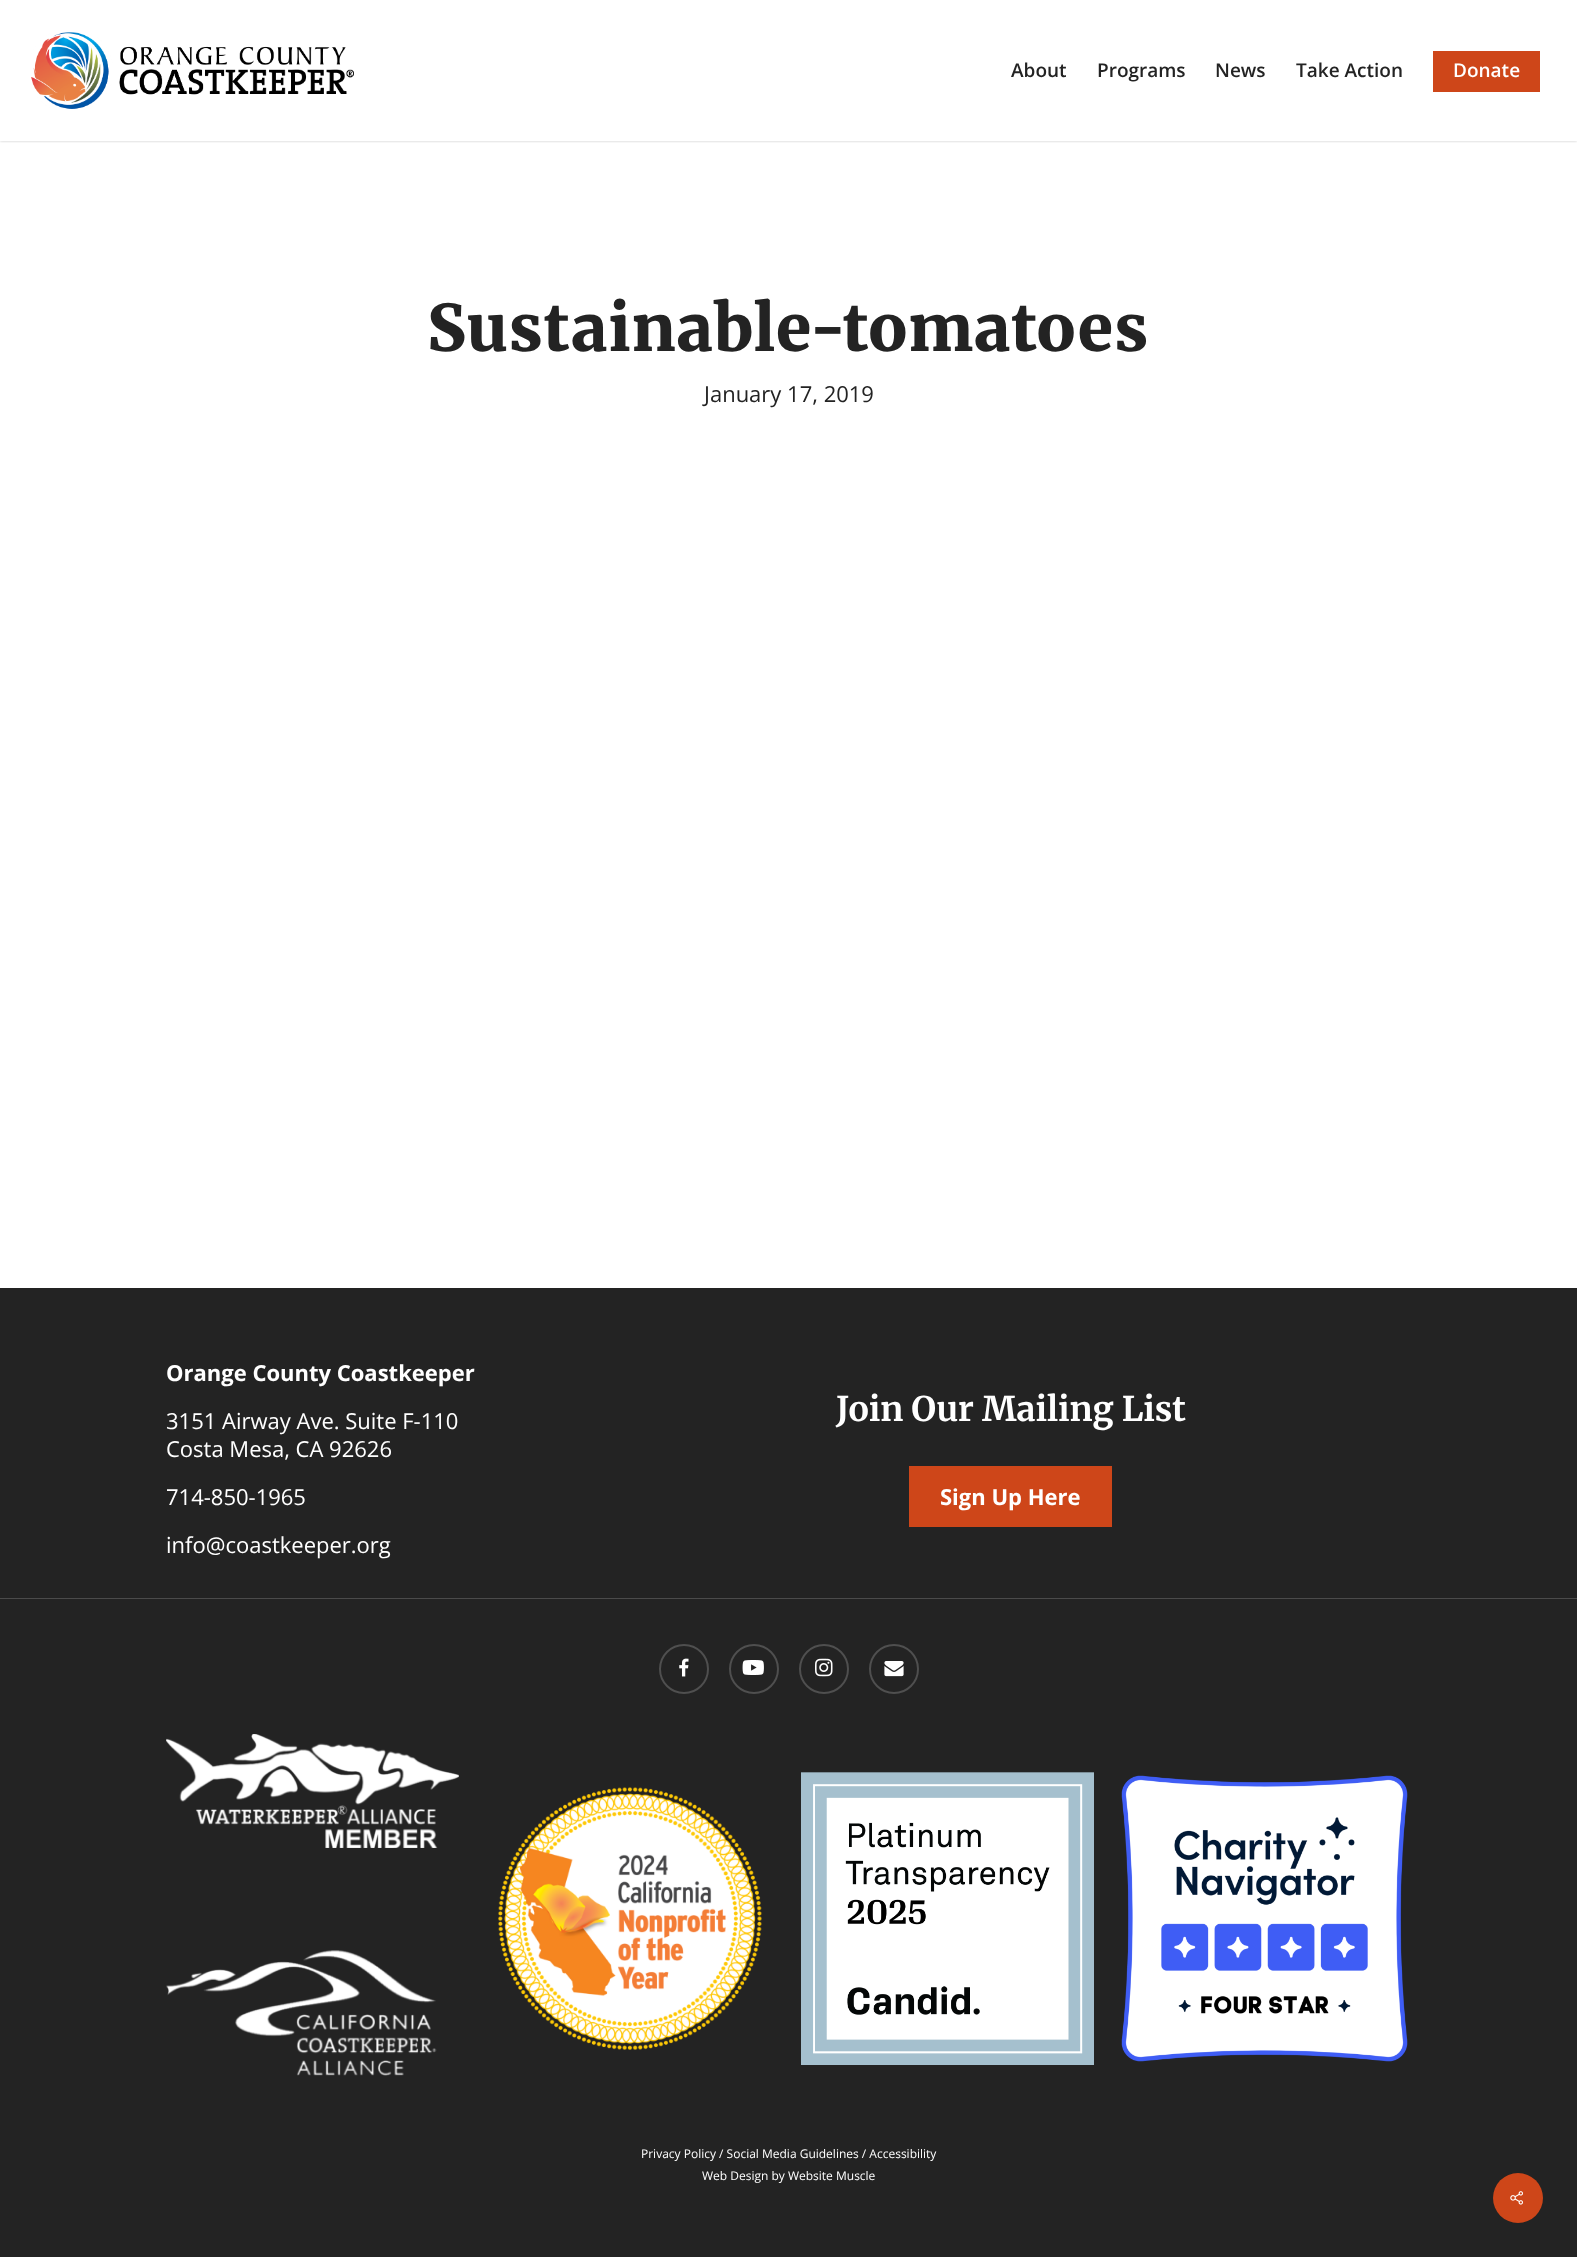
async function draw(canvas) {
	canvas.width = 1577;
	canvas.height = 2257;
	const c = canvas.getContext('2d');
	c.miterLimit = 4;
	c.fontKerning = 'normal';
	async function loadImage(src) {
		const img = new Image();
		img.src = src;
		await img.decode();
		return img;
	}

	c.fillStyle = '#fff';
	c.fillRect(0, 0, 1577, 2257);
	c.save();
	c.beginPath();
	c.rect(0, 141, 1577, 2);
	c.clip();
	c.fillStyle = '#00000038';
	c.filter = 'blur(1.5px)';
	c.beginPath();
	c.rect(0, 0, 1577, 141);
	c.fill();
	c.filter = 'none';
	c.restore();
	c.drawImage(await loadImage('img1.png'), 31, 32, 323, 77);
	c.font = '600 19px Open Sans';
	c.fillStyle = '#232323';
	for (const [text, x, y] of [
		['About', 1011, 77],
		['Programs', 1097, 77],
		['News', 1215, 77],
		['Take Action', 1296, 77],
	]) {
		c.fillText(text, x, y);
	}
	c.fillStyle = '#ce4619';
	c.fillRect(1433, 51, 107, 41);
	c.fillStyle = '#fff';
	c.fillText('Donate', 1453, 77);
	c.letterSpacing = '1px';
	c.font = '900 64px Merriweather';
	c.fillStyle = '#232323';
	c.fillText('Sustainable-tomatoes', 427, 351);
	c.letterSpacing = '0px';
	c.font = '22px Open Sans';
	c.fillText('January 17, 2019', 704, 402);
	c.fillRect(0, 1288, 1577, 969);
	c.font = 'bold 22px Open Sans';
	c.fillStyle = '#fff';
	c.fillText('Orange County Coastkeeper', 166, 1381);
	c.font = '22px Open Sans';
	for (const [text, x, y] of [
		['3151 Airway Ave. Suite F-110', 166, 1429],
		['Costa Mesa, CA 92626', 166, 1457],
		['714-850-1965', 166, 1505],
		['info@coastkeeper.org', 166, 1553],
	]) {
		c.fillText(text, x, y);
	}
	c.font = 'bold 34px Merriweather';
	c.fillText('Join Our Mailing List', 836, 1421);
	c.fillStyle = '#ce4619';
	c.fillRect(909, 1466, 203, 61);
	c.font = 'bold 22px Open Sans';
	c.fillStyle = '#fff';
	c.fillText('Sign Up Here', 940, 1505);
	c.fillStyle = '#4b4b4b';
	c.fillRect(0, 1598, 1577, 1);
	c.drawImage(await loadImage('img2.png'), 679, 1658, 10, 19);
	c.beginPath();
	c.arc(684, 1669, 24, 0, 2 * Math.PI);
	c.strokeStyle = '#4f4f4f';
	c.lineWidth = 2;
	c.stroke();
	c.drawImage(await loadImage('img3.png'), 742, 1660, 22, 15);
	c.beginPath();
	c.arc(754, 1669, 24, 0, 2 * Math.PI);
	c.stroke();
	c.drawImage(await loadImage('img4.png'), 815, 1658, 18, 19);
	c.beginPath();
	c.arc(824, 1669, 24, 0, 2 * Math.PI);
	c.stroke();
	c.drawImage(await loadImage('img5.png'), 884, 1661, 20, 16);
	c.beginPath();
	c.arc(894, 1669, 24, 0, 2 * Math.PI);
	c.stroke();
	c.drawImage(await loadImage('img6.png'), 166, 1734, 293, 114);
	c.drawImage(await loadImage('img7.png'), 166, 1950, 271, 126);
	c.drawImage(await loadImage('img8.png'), 498, 1787, 264, 263);
	c.drawImage(await loadImage('img9.png'), 801, 1772, 293, 293);
	c.drawImage(await loadImage('img10.png'), 1121, 1775, 287, 287);
	c.font = '12px Open Sans';
	c.fillStyle = '#fff';
	c.fillText('Privacy Policy / Social Media Guidelines / Accessibility', 641, 2158);
	c.fillText('Web Design by Website Muscle', 702, 2180);
	c.fillStyle = '#ce4619';
	c.beginPath();
	c.arc(1518, 2198, 25, 0, 2 * Math.PI);
	c.fill();
	c.drawImage(await loadImage('img11.png'), 1510, 2191, 13, 14);
}

draw(document.querySelector('canvas'));
